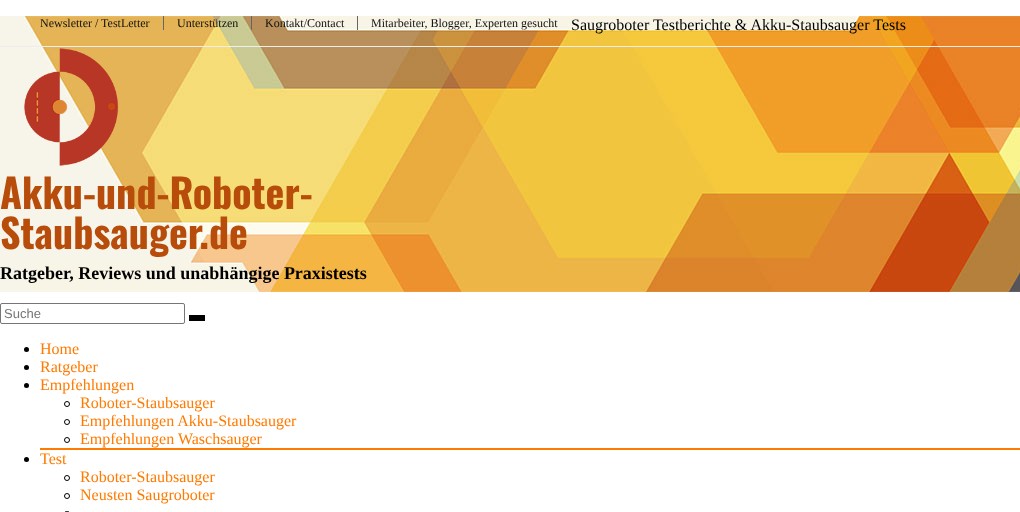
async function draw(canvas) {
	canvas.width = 1020;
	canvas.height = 512;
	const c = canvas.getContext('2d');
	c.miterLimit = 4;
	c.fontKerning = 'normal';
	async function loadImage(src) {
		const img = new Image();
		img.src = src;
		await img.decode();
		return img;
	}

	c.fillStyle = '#fff';
	c.fillRect(0, 0, 1020, 512);
	c.drawImage(await loadImage('img1.png'), 0, 16, 1020, 276);
	c.fillStyle = '#eee';
	c.fillRect(0, 46, 1020, 1);
	c.font = '12px Liberation Serif';
	c.fillStyle = '#111';
	c.fillText('Newsletter / TestLetter', 40, 27);
	c.fillStyle = '#666';
	c.fillRect(163, 16, 1, 14);
	c.fillStyle = '#111';
	c.fillText('Unterstützen', 177, 27);
	c.fillStyle = '#666';
	c.fillRect(251, 16, 1, 14);
	c.fillStyle = '#111';
	c.fillText('Kontakt/Contact', 265, 27);
	c.fillStyle = '#666';
	c.fillRect(357, 16, 1, 14);
	c.fillStyle = '#111';
	c.fillText('Mitarbeiter, Blogger, Experten gesucht', 371, 27);
	c.font = '16px Liberation Serif';
	c.fillStyle = '#000';
	c.fillText('Saugroboter Testberichte & Akku-Staubsauger Tests', 571, 30);
	c.drawImage(await loadImage('img2.png'), 24, 48, 95, 118);
	c.font = 'bold 40px Oswald';
	c.fillStyle = '#b84c0a';
	c.fillText('Akku-und-Roboter-', 0, 209);
	c.fillText('Staubsauger.de', 0, 249);
	c.font = 'bold 18px Liberation Serif';
	c.fillStyle = '#000';
	c.fillText('Ratgeber, Reviews und unabhängige Praxistests', 0, 279);
	c.beginPath();
	c.roundRect(0.5, 303.5, 184, 20, 1.5);
	c.strokeStyle = '#767676';
	c.stroke();
	c.font = '13px Liberation Sans';
	c.fillStyle = '#757575';
	c.fillText('Suche', 4, 318);
	c.fillStyle = '#000';
	c.fillRect(189, 315, 16, 6);
	c.beginPath();
	c.arc(26.5, 349.5, 2.5, 0, 2 * Math.PI);
	c.fill();
	c.font = '16px Liberation Serif';
	c.fillStyle = '#ff7a00';
	c.fillText('Home', 40, 354);
	c.fillStyle = '#000';
	c.beginPath();
	c.arc(26.5, 367.5, 2.5, 0, 2 * Math.PI);
	c.fill();
	c.fillStyle = '#ff7a00';
	c.fillText('Ratgeber', 40, 372);
	c.fillStyle = '#000';
	c.beginPath();
	c.arc(26.5, 385.5, 2.5, 0, 2 * Math.PI);
	c.fill();
	c.fillStyle = '#ff7a00';
	c.fillText('Empfehlungen', 40, 390);
	c.fillRect(40, 448, 980, 2);
	c.beginPath();
	c.arc(67, 404, 2.5, 0, 2 * Math.PI);
	c.strokeStyle = '#000';
	c.stroke();
	c.fillText('Roboter-Staubsauger', 80, 408);
	c.beginPath();
	c.arc(67, 422, 2.5, 0, 2 * Math.PI);
	c.stroke();
	c.fillText('Empfehlungen Akku-Staubsauger', 80, 426);
	c.beginPath();
	c.arc(67, 440, 2.5, 0, 2 * Math.PI);
	c.stroke();
	c.fillText('Empfehlungen Waschsauger', 80, 444);
	c.fillStyle = '#000';
	c.beginPath();
	c.arc(26.5, 459.5, 2.5, 0, 2 * Math.PI);
	c.fill();
	c.fillStyle = '#ff7a00';
	c.fillText('Test', 40, 464);
	c.beginPath();
	c.arc(67, 478, 2.5, 0, 2 * Math.PI);
	c.stroke();
	c.fillText('Roboter-Staubsauger', 80, 482);
	c.beginPath();
	c.arc(67, 496, 2.5, 0, 2 * Math.PI);
	c.stroke();
	c.fillText('Neusten Saugroboter', 80, 500);
	c.beginPath();
	c.roundRect(64.5, 511.5, 5, 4, 2.5);
	c.stroke();
}

draw(document.querySelector('canvas'));
